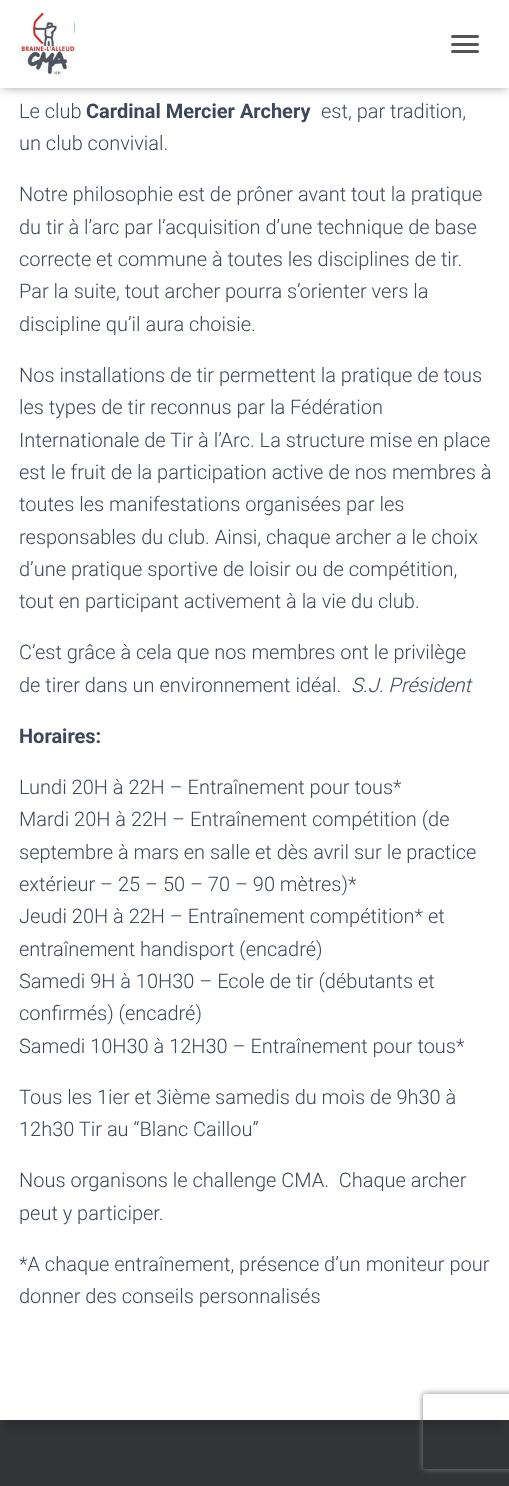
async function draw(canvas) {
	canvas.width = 509;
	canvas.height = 1486;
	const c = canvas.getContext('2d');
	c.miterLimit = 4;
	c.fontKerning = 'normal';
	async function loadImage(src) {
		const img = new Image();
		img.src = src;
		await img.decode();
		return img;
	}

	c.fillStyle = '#323437';
	c.fillRect(0, 0, 509, 1486);
	c.fillStyle = '#00000033';
	c.filter = 'blur(6px)';
	c.beginPath();
	c.rect(6, 74, 498, 1350);
	c.fill();
	c.filter = 'none';
	c.fillStyle = '#fff';
	c.fillRect(0, 88, 509, 1332);
	c.fillStyle = '#0000001a';
	c.filter = 'blur(3px)';
	c.beginPath();
	c.rect(3, 8, 505, 82);
	c.fill();
	c.filter = 'none';
	c.fillStyle = '#0000001f';
	c.filter = 'blur(6px)';
	c.beginPath();
	c.rect(0, 1, 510, 88);
	c.fill();
	c.filter = 'none';
	c.fillStyle = '#0000006b';
	c.filter = 'blur(6px)';
	c.beginPath();
	c.rect(8, 9, 495, 72);
	c.fill();
	c.filter = 'none';
	c.fillStyle = '#fff';
	c.fillRect(0, 0, 509, 88);
	c.drawImage(await loadImage('img1.png'), 19, 12, 56, 63);
	c.fillStyle = '#555';
	c.beginPath();
	c.roundRect(451, 35, 28, 3, 1.5);
	c.fill();
	c.beginPath();
	c.roundRect(451, 43, 28, 3, 1.5);
	c.fill();
	c.beginPath();
	c.roundRect(451, 50, 28, 3, 1.5);
	c.fill();
	c.font = '300 20px Roboto';
	c.fillStyle = '#3c4858';
	c.fillText('Le club', 19, 118);
	c.font = 'bold 20px Roboto';
	c.fillText('Cardinal Mercier Archery', 86, 118);
	c.font = '300 20px Roboto';
	for (const [text, x, y] of [
		['est, par tradition,', 321, 118],
		['un club convivial.', 19, 150],
		['Notre philosophie est de prôner avant tout la pratique', 19, 201],
		['du tir à l’arc par l’acquisition d’une technique de base', 19, 234],
		['correcte et commune à toutes les disciplines de tir.', 19, 266],
		['Par la suite, tout archer pourra s’orienter vers la', 19, 298],
		['discipline qu’il aura choisie.', 19, 331],
		['Nos installations de tir permettent la pratique de tous', 19, 382],
		['les types de tir reconnus par la Fédération', 19, 414],
		['Internationale de Tir à l’Arc. La structure mise en place', 19, 447],
		['est le fruit de la participation active de nos membres à', 19, 479],
		['toutes les manifestations organisées par les', 19, 511],
		['responsables du club. Ainsi, chaque archer a le choix', 19, 544],
		['d’une pratique sportive de loisir ou de compétition,', 19, 576],
		['tout en participant activement à la vie du club.', 19, 608],
		['C’est grâce à cela que nos membres ont le privilège', 19, 659],
		['de tirer dans un environnement idéal.', 19, 692],
	]) {
		c.fillText(text, x, y);
	}
	c.font = 'italic 300 20px Roboto';
	c.fillText('S.J. Président', 351, 692);
	c.font = 'bold 20px Roboto';
	c.fillText('Horaires:', 19, 743);
	c.font = '300 20px Roboto';
	for (const [text, x, y] of [
		['Lundi 20H à 22H – Entraînement pour tous*', 19, 794],
		['Mardi 20H à 22H – Entraînement compétition (de', 19, 826],
		['septembre à mars en salle et dès avril sur le practice', 19, 859],
		['extérieur – 25 – 50 – 70 – 90 mètres)*', 19, 891],
		['Jeudi 20H à 22H – Entraînement compétition* et', 19, 923],
		['entraînement handisport (encadré)', 19, 956],
		['Samedi 9H à 10H30 – Ecole de tir (débutants et', 19, 988],
		['confirmés) (encadré)', 19, 1020],
		['Samedi 10H30 à 12H30 – Entraînement pour tous*', 19, 1053],
		['Tous les 1ier et 3ième samedis du mois de 9h30 à', 19, 1104],
		['12h30 Tir au “Blanc Caillou”', 19, 1136],
		['Nous organisons le challenge CMA.  Chaque archer', 19, 1187],
		['peut y participer.', 19, 1220],
		['*A chaque entraînement, présence d’un moniteur pour', 19, 1271],
		['donner des conseils personnalisés', 19, 1303],
	]) {
		c.fillText(text, x, y);
	}
	c.save();
	c.beginPath();
	c.moveTo(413, 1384);
	c.lineTo(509, 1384);
	c.lineTo(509, 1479);
	c.lineTo(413, 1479);
	c.closePath();
	c.moveTo(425.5, 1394);
	c.lineTo(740.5, 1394);
	c.bezierCurveTo(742, 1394, 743, 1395, 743, 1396.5);
	c.lineTo(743, 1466.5);
	c.bezierCurveTo(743, 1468, 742, 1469, 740.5, 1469);
	c.lineTo(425.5, 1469);
	c.bezierCurveTo(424, 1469, 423, 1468, 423, 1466.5);
	c.lineTo(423, 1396.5);
	c.bezierCurveTo(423, 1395, 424, 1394, 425.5, 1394);
	c.closePath();
	c.clip('evenodd');
	c.fillStyle = '#808080';
	c.filter = 'blur(3px)';
	c.beginPath();
	c.roundRect(423, 1394, 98, 75, 2.5);
	c.fill();
	c.filter = 'none';
	c.restore();
}

draw(document.querySelector('canvas'));
